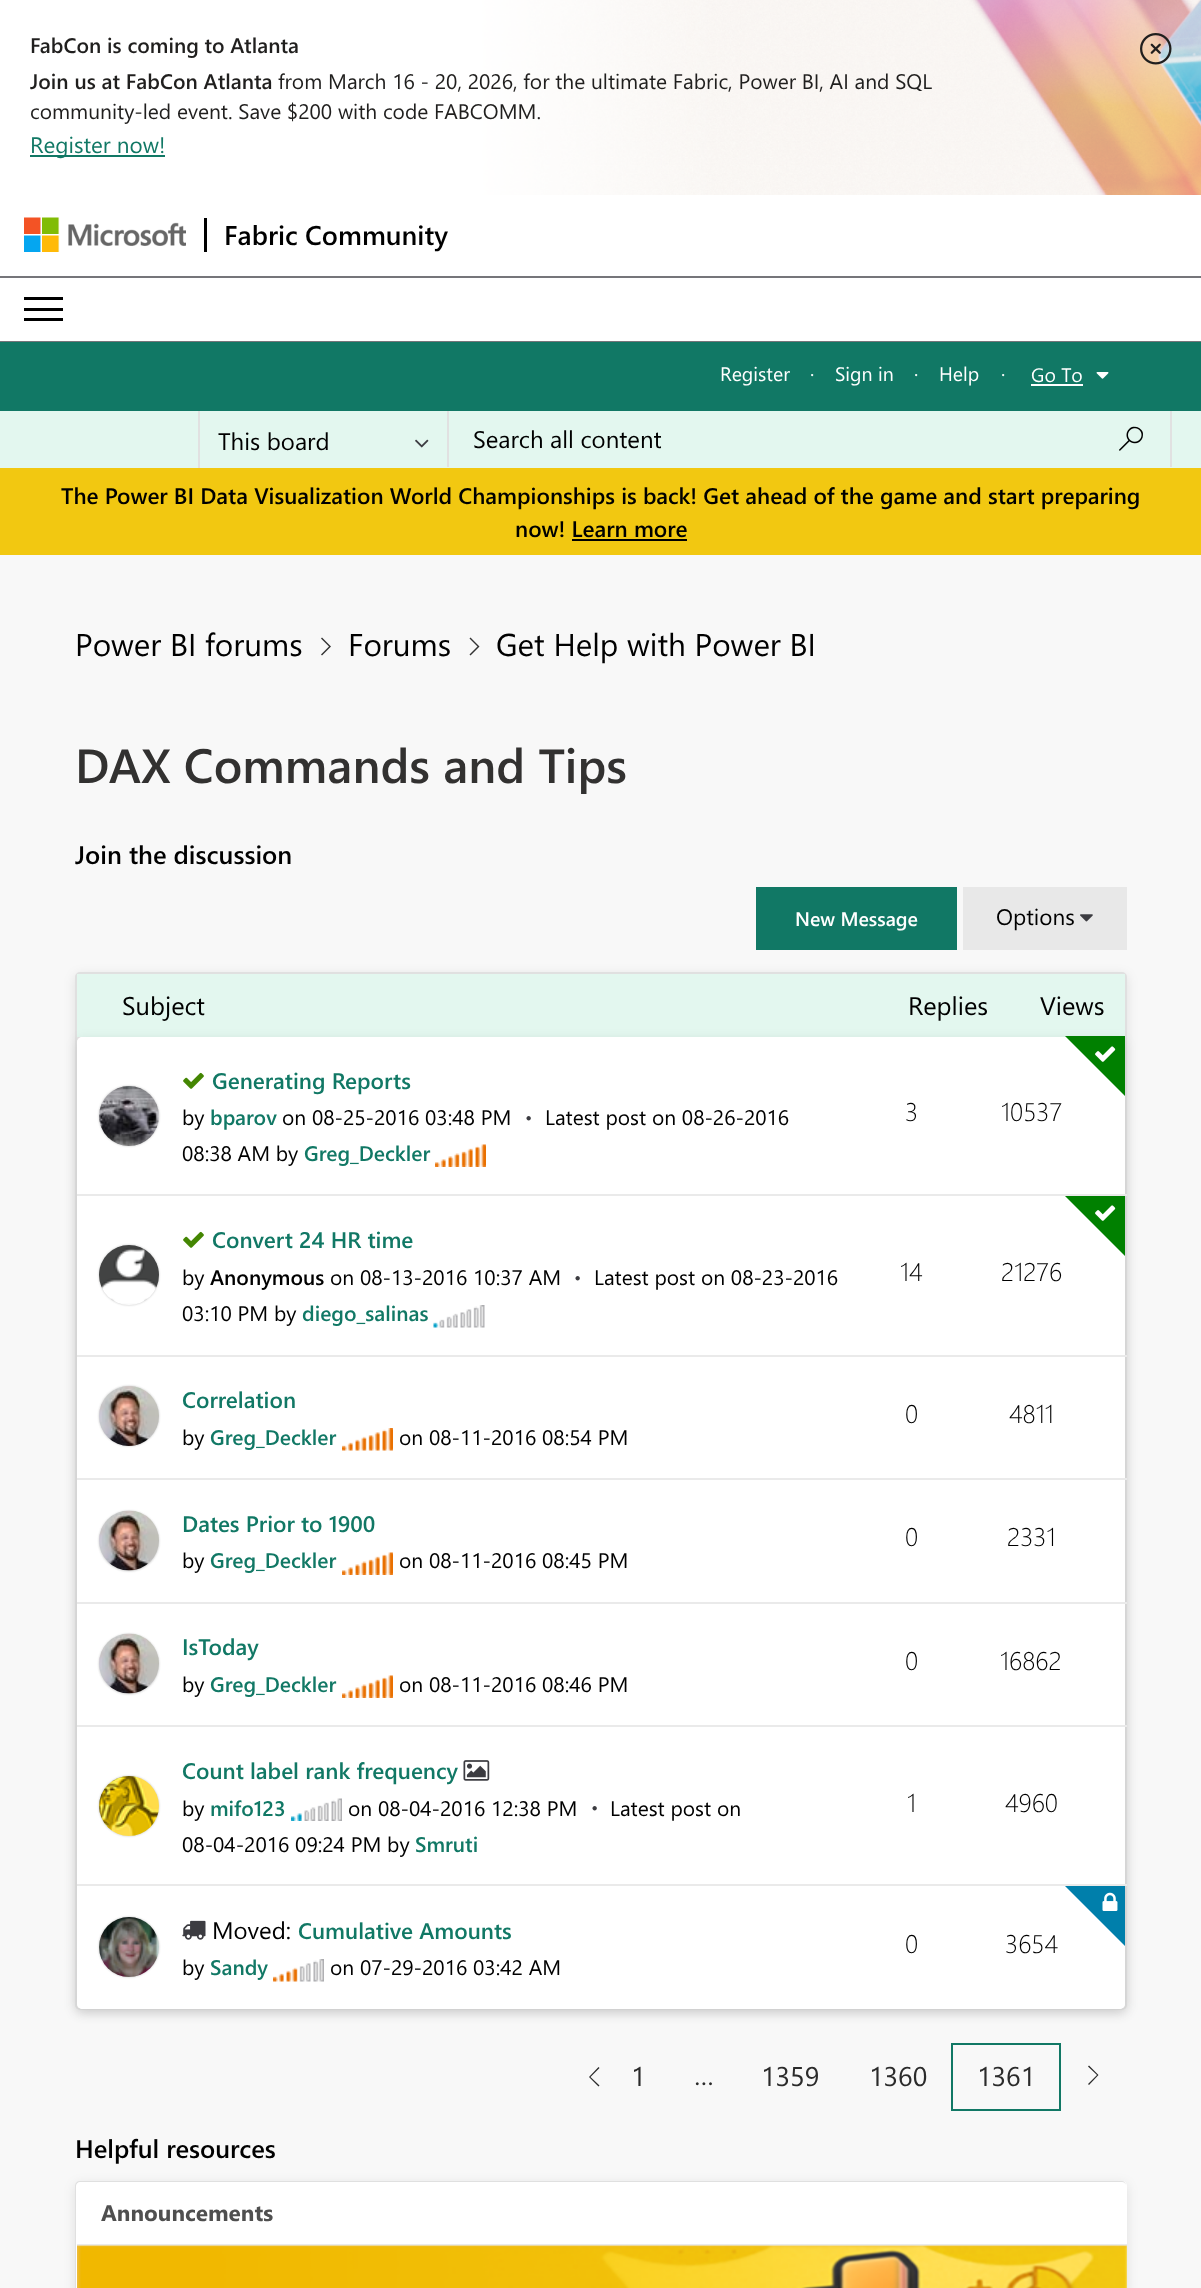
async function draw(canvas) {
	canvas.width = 1201;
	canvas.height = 2288;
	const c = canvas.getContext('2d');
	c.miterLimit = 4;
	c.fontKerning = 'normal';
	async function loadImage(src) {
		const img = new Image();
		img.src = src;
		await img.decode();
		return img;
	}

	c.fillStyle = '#f8f8f8';
	c.fillRect(0, 0, 1201, 2288);
	c.drawImage(await loadImage('img1.png'), 0, 0, 1201, 195);
	c.font = '600 21px Segoe UI';
	c.fillStyle = '#201f1e';
	c.fillText('FabCon is coming to Atlanta', 30, 53);
	c.font = '600 21px "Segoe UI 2"';
	c.fillText('Join us at FabCon Atlanta', 30, 89);
	c.font = '21px Segoe UI';
	c.fillText('from March 16 - 20, 2026, for the ultimate Fabric, Power BI, AI and SQL', 278, 89);
	c.fillText('community-led event. Save $200 with code FABCOMM.', 30, 119);
	c.fillStyle = '#117865';
	c.fillRect(30, 155, 135, 2);
	c.font = '22.5px Segoe UI';
	c.fillText('Register now!', 30, 153);
	c.drawImage(await loadImage('img2.png'), 1140, 33, 32, 32);
	c.fillStyle = '#fff';
	c.fillRect(0, 195, 1201, 146);
	c.drawImage(await loadImage('img3.png'), 24, 217, 162, 35);
	c.fillStyle = '#000';
	c.fillRect(204, 218, 3, 34);
	c.font = '600 27px "Segoe UI 2"';
	c.fillText('Fabric Community', 224, 245);
	for (const [x, y, w, h, color] of [
		[0, 276, 1201, 2, '#75757a'],
		[0, 341, 1201, 1, '#75757a'],
		[24, 297, 39, 3, '#000'],
		[24, 308, 39, 3, '#000'],
		[24, 318, 39, 3, '#000'],
		[0, 342, 1201, 69, '#117865'],
	]) {
		c.fillStyle = color;
		c.fillRect(x, y, w, h);
	}
	c.font = '19.5px Segoe UI';
	c.fillStyle = '#fff';
	for (const [text, x, y] of [
		['Register', 720, 381],
		['·', 810, 381],
		['Sign in', 835, 381],
		['·', 914, 381],
		['Help', 939, 381],
		['·', 1001, 381],
		['Go To', 1031, 382],
	]) {
		c.fillText(text, x, y);
	}
	c.fillRect(1031, 384, 52, 2);
	c.drawImage(await loadImage('img4.png'), 1096, 372, 13, 7);
	c.fillStyle = '#e3f7ef';
	c.fillRect(0, 411, 1201, 57);
	c.fillStyle = '#e1e1e1';
	c.fillRect(198, 411, 2, 57);
	c.font = '24px Segoe UI';
	c.fillStyle = '#000';
	c.fillText('This board', 218, 450);
	c.drawImage(await loadImage('img5.png'), 415, 439, 14, 9);
	c.fillStyle = '#e1e1e1';
	c.fillRect(1170, 411, 2, 56);
	c.fillRect(447, 411, 2, 56);
	c.fillStyle = '#000';
	c.fillText('Search all content', 473, 448);
	c.drawImage(await loadImage('img6.png'), 1119, 426, 24, 25);
	c.fillStyle = '#f2c811';
	c.fillRect(0, 468, 1201, 87);
	c.font = '600 22.5px Segoe UI';
	c.fillStyle = '#000';
	c.fillText('The Power BI Data Visualization World Championships is back! Get ahead of the game and start preparing', 61, 504);
	c.fillText('now! Learn more', 515, 537);
	c.fillRect(572, 539, 115, 2);
	c.font = '31.5px Segoe UI';
	c.fillText('Power BI forums', 75, 656);
	c.fillStyle = '#333';
	c.beginPath();
	c.moveTo(321, 654.5);
	c.lineTo(329, 646.5);
	c.lineTo(321, 638.5);
	c.lineTo(322, 637.5);
	c.lineTo(331, 646.5);
	c.lineTo(322, 655.5);
	c.closePath();
	c.fill();
	c.fillStyle = '#000';
	c.fillText('Forums', 348, 656);
	c.fillStyle = '#333';
	c.beginPath();
	c.moveTo(469.5, 654.5);
	c.lineTo(477.5, 646.5);
	c.lineTo(469.5, 638.5);
	c.lineTo(470.5, 637.5);
	c.lineTo(479.5, 646.5);
	c.lineTo(470.5, 655.5);
	c.closePath();
	c.fill();
	c.fillStyle = '#000';
	c.fillText('Get Help with Power BI', 496, 656);
	c.font = '600 48px Segoe UI';
	c.fillStyle = '#323130';
	c.fillText('DAX Commands and Tips', 75, 783);
	c.font = '600 25.5px Segoe UI';
	c.fillStyle = '#000';
	c.fillText('Join the discussion', 75, 864);
	c.fillStyle = '#117865';
	c.fillRect(756, 887, 201, 63);
	c.font = '600 19.5px Segoe UI';
	c.fillStyle = '#fff';
	c.fillText('New Message', 795, 926);
	c.fillStyle = '#e8e8e8';
	c.fillRect(963, 887, 164, 63);
	c.font = '22.5px Segoe UI';
	c.fillStyle = '#000';
	c.fillText('Options', 996, 925);
	c.drawImage(await loadImage('img7.png'), 1080, 914, 13, 8);
	c.fillStyle = '#0000001a';
	c.filter = 'blur(6px)';
	c.beginPath();
	c.roundRect(75, 975, 1052, 1038, 5);
	c.fill();
	c.filter = 'none';
	c.beginPath();
	c.roundRect(76, 973, 1050, 1036, 4);
	c.strokeStyle = '#e0e0e0';
	c.lineWidth = 2;
	c.stroke();
	c.fillStyle = '#e3f7ef';
	c.fillRect(77, 974, 1048, 63);
	c.font = '25.5px Segoe UI';
	c.fillStyle = '#000';
	for (const [text, x, y] of [
		['Subject', 122, 1015],
		['Replies', 908, 1015],
		['Views', 1040, 1015],
	]) {
		c.fillText(text, x, y);
	}
	c.fillStyle = '#0000001a';
	c.filter = 'blur(6px)';
	c.beginPath();
	c.roundRect(77, 1040, 1048, 972, 5);
	c.fill();
	c.filter = 'none';
	c.fillStyle = '#fff';
	c.beginPath();
	c.roundRect(77, 1037, 1048, 972, 5);
	c.fill();
	c.beginPath();
	c.roundRect(77, 1037, 1048, 972, 6);
	c.fill();
	c.fillStyle = '#eaeaea';
	c.fillRect(77, 1194, 1050, 2);
	c.fillStyle = '#008000';
	c.beginPath();
	c.moveTo(1065, 1036);
	c.lineTo(1125, 1036);
	c.lineTo(1125, 1096);
	c.closePath();
	c.fill();
	c.drawImage(await loadImage('img8.png'), 1095, 1046, 21, 16);
	c.fillStyle = '#c4c4c4';
	c.filter = 'blur(1px)';
	c.beginPath();
	c.roundRect(99, 1086, 60, 60, 30);
	c.fill();
	c.filter = 'none';
	c.drawImage(await loadImage('img9.png'), 99, 1086, 60, 60);
	c.drawImage(await loadImage('img10.png'), 183, 1072, 21, 17);
	c.font = '600 22.5px Segoe UI';
	c.fillStyle = '#117865';
	c.fillText('Generating Reports', 212, 1089);
	c.font = '21px Segoe UI';
	c.fillStyle = '#000';
	c.fillText('by', 182, 1125);
	c.font = '600 21px Segoe UI';
	c.fillStyle = '#117865';
	c.fillText('bparov', 210, 1125);
	c.font = '21px Segoe UI';
	c.fillStyle = '#000';
	c.fillText('on 08-25-2016 03:48 PM', 282, 1125);
	c.font = '18px Segoe UI';
	c.fillStyle = '#3c3c41';
	c.fillText('•', 525, 1124);
	c.font = '21px Segoe UI';
	c.fillStyle = '#000';
	c.fillText('Latest post on 08-26-2016', 545, 1125);
	c.fillText('08:38 AM by', 182, 1161);
	c.font = '600 21px Segoe UI';
	c.fillStyle = '#117865';
	c.fillText('Greg_Deckler', 304, 1161);
	c.drawImage(await loadImage('img11.png'), 435, 1144, 51, 23);
	c.font = '300 25.5px Segoe UI';
	c.fillStyle = '#000';
	c.fillText('3', 905, 1121);
	c.fillText('10537', 1001, 1121);
	c.fillStyle = '#eaeaea';
	c.fillRect(77, 1355, 1050, 2);
	c.fillStyle = '#c4c4c4';
	c.filter = 'blur(1px)';
	c.beginPath();
	c.roundRect(99, 1245, 60, 60, 30);
	c.fill();
	c.filter = 'none';
	c.drawImage(await loadImage('img12.png'), 99, 1245, 60, 60);
	c.drawImage(await loadImage('img10.png'), 183, 1231, 21, 17);
	c.font = '600 22.5px Segoe UI';
	c.fillStyle = '#117865';
	c.fillText('Convert 24 HR time', 212, 1248);
	c.font = '21px Segoe UI';
	c.fillStyle = '#000';
	c.fillText('by', 182, 1285);
	c.font = '600 21px Segoe UI';
	c.fillText('Anonymous', 210, 1285);
	c.font = '21px Segoe UI';
	c.fillText('on 08-13-2016 10:37 AM', 330, 1285);
	c.font = '18px Segoe UI';
	c.fillStyle = '#3c3c41';
	c.fillText('•', 574, 1284);
	c.font = '21px Segoe UI';
	c.fillStyle = '#000';
	c.fillText('Latest post on 08-23-2016', 594, 1285);
	c.fillText('03:10 PM by', 182, 1321);
	c.font = '600 21px Segoe UI';
	c.fillStyle = '#117865';
	c.fillText('diego_salinas', 302, 1321);
	c.drawImage(await loadImage('img13.png'), 433, 1305, 52, 23);
	c.font = '300 25.5px Segoe UI';
	c.fillStyle = '#000';
	c.fillText('14', 900, 1281);
	c.fillText('21276', 1001, 1281);
	c.fillStyle = '#008000';
	c.beginPath();
	c.moveTo(1065, 1196);
	c.lineTo(1125, 1196);
	c.lineTo(1125, 1256);
	c.closePath();
	c.fill();
	c.drawImage(await loadImage('img8.png'), 1095, 1205, 21, 16);
	c.fillStyle = '#eaeaea';
	c.fillRect(77, 1478, 1050, 2);
	c.fillStyle = '#c4c4c4';
	c.filter = 'blur(1px)';
	c.beginPath();
	c.roundRect(99, 1386, 60, 60, 30);
	c.fill();
	c.filter = 'none';
	c.drawImage(await loadImage('img14.png'), 99, 1386, 60, 60);
	c.font = '600 22.5px Segoe UI';
	c.fillStyle = '#117865';
	c.fillText('Correlation', 182, 1408);
	c.font = '21px Segoe UI';
	c.fillStyle = '#000';
	c.fillText('by', 182, 1445);
	c.font = '600 21px Segoe UI';
	c.fillStyle = '#117865';
	c.fillText('Greg_Deckler', 210, 1445);
	c.drawImage(await loadImage('img15.png'), 342, 1428, 51, 23);
	c.font = '21px Segoe UI';
	c.fillStyle = '#000';
	c.fillText('on 08-11-2016 08:54 PM', 399, 1445);
	c.font = '300 25.5px Segoe UI';
	c.fillText('0', 905, 1423);
	c.fillText('4811', 1009, 1423);
	c.fillStyle = '#eaeaea';
	c.fillRect(77, 1602, 1050, 2);
	c.fillStyle = '#c4c4c4';
	c.filter = 'blur(1px)';
	c.beginPath();
	c.roundRect(99, 1511, 60, 60, 30);
	c.fill();
	c.filter = 'none';
	c.drawImage(await loadImage('img16.png'), 99, 1510, 60, 61);
	c.font = '600 22.5px Segoe UI';
	c.fillStyle = '#117865';
	c.fillText('Dates Prior to 1900', 182, 1532);
	c.font = '21px Segoe UI';
	c.fillStyle = '#000';
	c.fillText('by', 182, 1568);
	c.font = '600 21px Segoe UI';
	c.fillStyle = '#117865';
	c.fillText('Greg_Deckler', 210, 1568);
	c.drawImage(await loadImage('img11.png'), 342, 1552, 51, 23);
	c.font = '21px Segoe UI';
	c.fillStyle = '#000';
	c.fillText('on 08-11-2016 08:45 PM', 399, 1568);
	c.font = '300 25.5px Segoe UI';
	c.fillText('0', 905, 1546);
	c.fillText('2331', 1007, 1546);
	c.fillStyle = '#eaeaea';
	c.fillRect(77, 1725, 1050, 2);
	c.fillStyle = '#c4c4c4';
	c.filter = 'blur(1px)';
	c.beginPath();
	c.roundRect(99, 1634, 60, 60, 30);
	c.fill();
	c.filter = 'none';
	c.drawImage(await loadImage('img17.png'), 99, 1633, 60, 61);
	c.font = '600 22.5px Segoe UI';
	c.fillStyle = '#117865';
	c.fillText('IsToday', 182, 1655);
	c.font = '21px Segoe UI';
	c.fillStyle = '#000';
	c.fillText('by', 182, 1692);
	c.font = '600 21px Segoe UI';
	c.fillStyle = '#117865';
	c.fillText('Greg_Deckler', 210, 1692);
	c.drawImage(await loadImage('img11.png'), 342, 1675, 51, 23);
	c.font = '21px Segoe UI';
	c.fillStyle = '#000';
	c.fillText('on 08-11-2016 08:46 PM', 399, 1692);
	c.font = '300 25.5px Segoe UI';
	c.fillText('0', 905, 1670);
	c.fillText('16862', 1000, 1670);
	c.fillStyle = '#eaeaea';
	c.fillRect(77, 1884, 1050, 2);
	c.fillStyle = '#c4c4c4';
	c.filter = 'blur(1px)';
	c.beginPath();
	c.roundRect(99, 1776, 60, 60, 30);
	c.fill();
	c.filter = 'none';
	c.drawImage(await loadImage('img18.png'), 99, 1776, 60, 60);
	c.font = '600 22.5px Segoe UI';
	c.fillStyle = '#117865';
	c.fillText('Count label rank frequency', 182, 1779);
	c.drawImage(await loadImage('img19.png'), 463, 1760, 27, 21);
	c.font = '21px Segoe UI';
	c.fillStyle = '#000';
	c.fillText('by', 182, 1816);
	c.font = '600 21px Segoe UI';
	c.fillStyle = '#117865';
	c.fillText('mifo123', 210, 1816);
	c.drawImage(await loadImage('img20.png'), 291, 1798, 51, 23);
	c.font = '21px Segoe UI';
	c.fillStyle = '#000';
	c.fillText('on 08-04-2016 12:38 PM', 348, 1816);
	c.font = '18px Segoe UI';
	c.fillStyle = '#3c3c41';
	c.fillText('•', 591, 1814);
	c.font = '21px Segoe UI';
	c.fillStyle = '#000';
	c.fillText('Latest post on', 610, 1816);
	c.fillText('08-04-2016 09:24 PM by', 182, 1852);
	c.font = '600 21px Segoe UI';
	c.fillStyle = '#117865';
	c.fillText('Smruti', 415, 1852);
	c.font = '300 25.5px Segoe UI';
	c.fillStyle = '#000';
	c.fillText('1', 907, 1812);
	c.fillText('4960', 1005, 1812);
	c.fillStyle = '#c4c4c4';
	c.filter = 'blur(1px)';
	c.beginPath();
	c.roundRect(99, 1917, 60, 60, 30);
	c.fill();
	c.filter = 'none';
	c.drawImage(await loadImage('img21.png'), 99, 1917, 60, 60);
	c.drawImage(await loadImage('img22.png'), 182, 1920, 24, 20);
	c.font = '24px Segoe UI';
	c.fillStyle = '#000';
	c.fillText('Moved:', 212, 1939);
	c.font = '600 22.5px Segoe UI';
	c.fillStyle = '#117865';
	c.fillText('Cumulative Amounts', 298, 1939);
	c.font = '21px Segoe UI';
	c.fillStyle = '#000';
	c.fillText('by', 182, 1975);
	c.font = '600 21px Segoe UI';
	c.fillStyle = '#117865';
	c.fillText('Sandy', 210, 1975);
	c.drawImage(await loadImage('img23.png'), 273, 1959, 51, 23);
	c.font = '21px Segoe UI';
	c.fillStyle = '#000';
	c.fillText('on 07-29-2016 03:42 AM', 330, 1975);
	c.font = '300 25.5px Segoe UI';
	c.fillText('0', 905, 1953);
	c.fillText('3654', 1005, 1953);
	c.fillStyle = '#007fab';
	c.beginPath();
	c.moveTo(1065, 1886);
	c.lineTo(1125, 1886);
	c.lineTo(1125, 1946);
	c.closePath();
	c.fill();
	c.drawImage(await loadImage('img24.png'), 1102, 1892, 16, 19);
	c.fillStyle = '#2b2b2b';
	c.beginPath();
	c.moveTo(599.5, 2085.5);
	c.lineTo(598.5, 2086.5);
	c.lineTo(589, 2077);
	c.lineTo(598.5, 2067);
	c.lineTo(599.5, 2068);
	c.lineTo(590.5, 2077);
	c.closePath();
	c.fill();
	c.font = '27px Segoe UI';
	for (const [text, x, y] of [
		['1', 631, 2086],
		['…', 694, 2085],
		['1359', 761, 2086],
		['1360', 869, 2086],
	]) {
		c.fillText(text, x, y);
	}
	c.strokeStyle = '#117865';
	c.strokeRect(952, 2044, 108, 66);
	c.fillText('1361', 977, 2086);
	c.beginPath();
	c.moveTo(1088, 2084);
	c.lineTo(1097, 2075);
	c.lineTo(1088, 2066.5);
	c.lineTo(1089, 2065.5);
	c.lineTo(1098.5, 2075);
	c.lineTo(1089, 2085);
	c.closePath();
	c.fill();
	c.font = '600 25.5px Segoe UI';
	c.fillStyle = '#000';
	c.fillText('Helpful resources', 75, 2158);
	c.fillStyle = '#0000001a';
	c.filter = 'blur(6px)';
	c.beginPath();
	c.roundRect(75, 2184, 1052, 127, 5);
	c.fill();
	c.filter = 'none';
	c.fillStyle = '#fff';
	c.beginPath();
	c.roundRect(75, 2181, 1052, 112, 5);
	c.fill();
	c.fillStyle = '#e0e0e0';
	c.beginPath();
	c.moveTo(80, 2181);
	c.lineTo(1122, 2181);
	c.bezierCurveTo(1124, 2181, 1126, 2183, 1126, 2186);
	c.lineTo(1126, 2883);
	c.bezierCurveTo(1126, 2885, 1124, 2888, 1122, 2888);
	c.lineTo(80, 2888);
	c.bezierCurveTo(77, 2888, 75, 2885, 75, 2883);
	c.lineTo(75, 2186);
	c.bezierCurveTo(75, 2183, 77, 2181, 80, 2181);
	c.closePath();
	c.moveTo(80, 2182);
	c.lineTo(1122, 2182);
	c.bezierCurveTo(1124, 2182, 1126, 2184, 1126, 2186);
	c.lineTo(1126, 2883);
	c.bezierCurveTo(1126, 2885, 1124, 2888, 1122, 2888);
	c.lineTo(80, 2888);
	c.bezierCurveTo(78, 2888, 76, 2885, 76, 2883);
	c.lineTo(76, 2186);
	c.bezierCurveTo(76, 2184, 78, 2182, 80, 2182);
	c.closePath();
	c.fill('evenodd');
	c.fillStyle = '#fff';
	c.beginPath();
	c.roundRect(77, 2183, 1050, 63, [5, 5, 0, 0]);
	c.fill();
	c.fillStyle = '#eaeaea';
	c.fillRect(77, 2244, 1050, 2);
	c.font = 'bold 22.5px Segoe UI';
	c.fillStyle = '#4f4f4f';
	c.fillText('Announcements', 101, 2221);
	c.drawImage(await loadImage('img25.png'), 77, 2245, 1050, 43);
}

draw(document.querySelector('canvas'));
